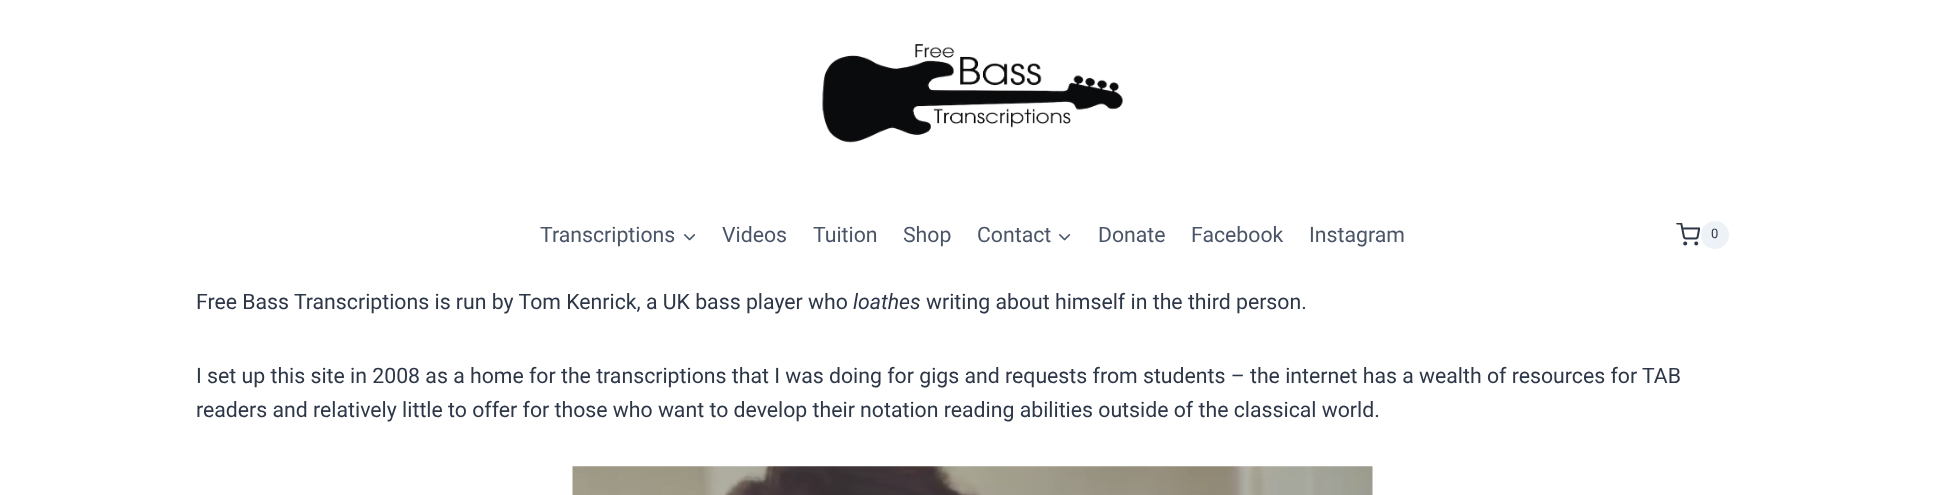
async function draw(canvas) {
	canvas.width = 1944;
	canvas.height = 495;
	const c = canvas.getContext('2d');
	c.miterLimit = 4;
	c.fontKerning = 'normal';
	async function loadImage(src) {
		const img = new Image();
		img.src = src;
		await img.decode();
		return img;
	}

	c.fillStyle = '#fff';
	c.fillRect(0, 0, 1944, 495);
	c.drawImage(await loadImage('img1.png'), 822, 44, 301, 99);
	c.font = '21.25px Roboto';
	c.fillStyle = '#4a5568';
	c.fillText('Transcriptions', 540, 242);
	c.drawImage(await loadImage('img2.png'), 684, 234, 12, 7);
	for (const [text, x, y] of [
		['Videos', 722, 242],
		['Tuition', 813, 242],
		['Shop', 903, 242],
		['Contact', 977, 242],
	]) {
		c.fillText(text, x, y);
	}
	c.drawImage(await loadImage('img2.png'), 1059, 234, 12, 7);
	for (const [text, x, y] of [
		['Donate', 1098, 242],
		['Facebook', 1191, 242],
		['Instagram', 1309, 242],
	]) {
		c.fillText(text, x, y);
	}
	c.drawImage(await loadImage('img3.png'), 1676, 223, 24, 23);
	c.fillStyle = '#edf2f7';
	c.beginPath();
	c.arc(1715, 235, 14, 0, 2 * Math.PI);
	c.fill();
	c.font = '13px Roboto';
	c.fillStyle = '#2d3748';
	c.fillText('0', 1711, 238);
	c.font = '21.25px Roboto';
	c.fillText('Free Bass Transcriptions is run by Tom Kenrick, a UK bass player who', 196, 309);
	c.font = 'italic 21.25px Roboto';
	c.fillText('loathes', 853, 309);
	c.font = '21.25px Roboto';
	for (const [text, x, y] of [
		['writing about himself in the third person.', 926, 309],
		['I set up this site in 2008 as a home for the transcriptions that I was doing for gigs and requests from students – the internet has a wealth of resources for TAB', 196, 383],
		['readers and relatively little to offer for those who want to develop their notation reading abilities outside of the classical world.', 196, 417],
	]) {
		c.fillText(text, x, y);
	}
	c.drawImage(await loadImage('img4.png'), 572, 466, 801, 29);
}

draw(document.querySelector('canvas'));
